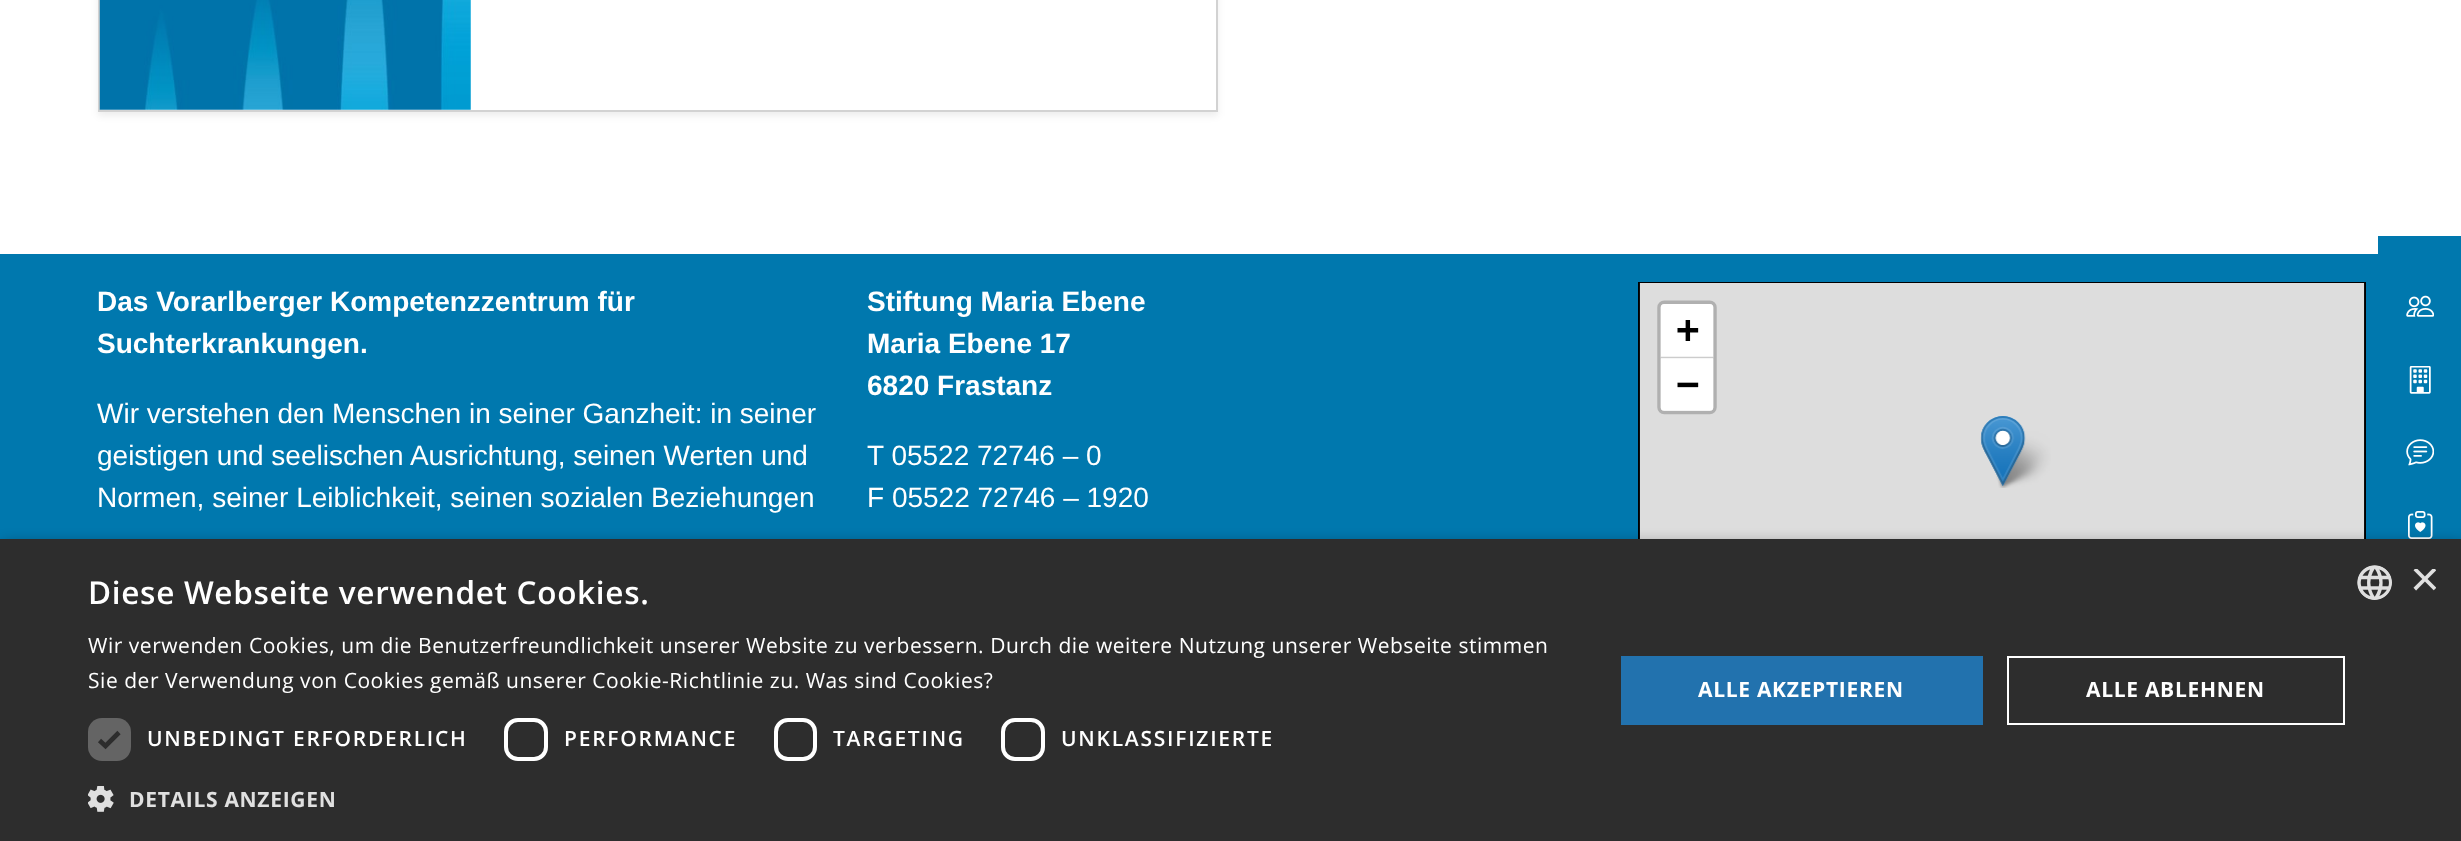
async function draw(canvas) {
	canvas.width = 2461;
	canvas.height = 841;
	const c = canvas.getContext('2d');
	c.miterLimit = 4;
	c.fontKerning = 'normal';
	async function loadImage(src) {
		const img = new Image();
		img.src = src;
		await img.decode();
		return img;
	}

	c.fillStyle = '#fff';
	c.fillRect(0, 0, 2461, 841);
	c.save();
	c.beginPath();
	c.moveTo(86, 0);
	c.lineTo(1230, 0);
	c.lineTo(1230, 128);
	c.lineTo(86, 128);
	c.closePath();
	c.moveTo(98, -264);
	c.lineTo(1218, -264);
	c.lineTo(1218, 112);
	c.lineTo(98, 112);
	c.closePath();
	c.clip('evenodd');
	c.fillStyle = '#00000012';
	c.filter = 'blur(3.5px)';
	c.beginPath();
	c.rect(98, -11, 1120, 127);
	c.fill();
	c.filter = 'none';
	c.restore();
	c.strokeStyle = '#d2d2d2';
	c.lineWidth = 2;
	c.strokeRect(99, -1, 1118, 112);
	c.drawImage(await loadImage('img1.png'), 99, 0, 372, 110);
	c.fillStyle = '#0078ae';
	c.fillRect(2378, 236, 83, 303);
	c.drawImage(await loadImage('img2.png'), 2406, 295, 28, 22);
	c.drawImage(await loadImage('img3.png'), 2409, 366, 22, 28);
	c.drawImage(await loadImage('img4.png'), 2406, 439, 28, 27);
	c.drawImage(await loadImage('img5.png'), 2408, 511, 25, 28);
	c.fillRect(0, 254, 2378, 285);
	c.font = 'bold 28px Liberation Sans';
	c.fillStyle = '#fff';
	c.fillText('Das Vorarlberger Kompetenzzentrum für', 97, 311);
	c.fillText('Suchterkrankungen.', 97, 353);
	c.font = '28px Liberation Sans';
	for (const [text, x, y] of [
		['Wir verstehen den Menschen in seiner Ganzheit: in seiner', 97, 423],
		['geistigen und seelischen Ausrichtung, seinen Werten und', 97, 465],
		['Normen, seiner Leiblichkeit, seinen sozialen Beziehungen', 97, 507],
	]) {
		c.fillText(text, x, y);
	}
	c.font = 'bold 28px Liberation Sans';
	for (const [text, x, y] of [
		['Stiftung Maria Ebene', 867, 311],
		['Maria Ebene 17', 867, 353],
		['6820 Frastanz', 867, 395],
	]) {
		c.fillText(text, x, y);
	}
	c.font = '28px Liberation Sans';
	c.fillText('T 05522 72746 – 0', 867, 465);
	c.fillText('F 05522 72746 – 1920', 867, 507);
	c.strokeStyle = '#000';
	c.strokeRect(1639, 283, 726, 407);
	c.drawImage(await loadImage('img6.png'), 1639, 283, 726, 256);
	c.fillStyle = '#00000059';
	c.filter = 'blur(7px)';
	c.beginPath();
	c.rect(2, 543, 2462, 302);
	c.fill();
	c.filter = 'none';
	c.fillStyle = '#2d2d2d';
	c.fillRect(0, 539, 2461, 302);
	c.letterSpacing = '0.7px';
	c.font = '600 31.5px Open Sans';
	c.fillStyle = '#fff';
	c.fillText('Diese Webseite verwendet Cookies.', 88, 604);
	c.letterSpacing = '0.53px';
	c.font = '21px Open Sans';
	c.fillText('Wir verwenden Cookies, um die Benutzerfreundlichkeit unserer Website zu verbessern. Durch die weitere Nutzung unserer Webseite stimmen', 88, 653);
	c.fillText('Sie der Verwendung von Cookies gemäß unserer Cookie-Richtlinie zu. Was sind Cookies?', 88, 688);
	c.fillStyle = '#646464';
	c.beginPath();
	c.roundRect(88, 718, 43, 43, 14);
	c.fill();
	c.beginPath();
	c.moveTo(99.5, 740.5);
	c.lineTo(105.5, 746);
	c.lineTo(119, 732.5);
	c.strokeStyle = '#2d2d2d';
	c.lineWidth = 4.6;
	c.stroke();
	c.letterSpacing = '1.75px';
	c.font = '600 21px Open Sans';
	c.fillStyle = '#fff';
	c.fillText('UNBEDINGT ERFORDERLICH', 147, 746);
	c.beginPath();
	c.roundRect(506, 720, 40, 39, 12);
	c.strokeStyle = '#fff';
	c.lineWidth = 4;
	c.stroke();
	c.fillText('PERFORMANCE', 564, 746);
	c.beginPath();
	c.roundRect(776, 720, 39, 39, 12);
	c.stroke();
	c.fillText('TARGETING', 833, 746);
	c.beginPath();
	c.roundRect(1003, 720, 40, 39, 12);
	c.stroke();
	c.fillText('UNKLASSIFIZIERTE', 1061, 746);
	c.drawImage(await loadImage('img7.png'), 88, 786, 26, 26);
	c.letterSpacing = '0.7px';
	c.font = 'bold 21px Open Sans';
	c.fillStyle = '#e0e0e0';
	c.fillText('DETAILS ANZEIGEN', 129, 807);
	c.fillStyle = '#2272ae';
	c.fillRect(1621, 656, 362, 69);
	c.fillStyle = '#fff';
	c.fillText('ALLE AKZEPTIEREN', 1698, 697);
	c.lineWidth = 2;
	c.strokeRect(2008, 657, 336, 67);
	c.fillText('ALLE ABLEHNEN', 2086, 697);
	c.drawImage(await loadImage('img8.png'), 2357, 565, 35, 35);
	c.save();
	c.beginPath();
	c.rect(2410, 569, 26, 26);
	c.clip();
	c.letterSpacing = '0px';
	c.font = '51px Liberation Sans';
	c.fillStyle = '#e0e0e0';
	c.fillText('×', 2410, 596);
	c.restore();
}

draw(document.querySelector('canvas'));
